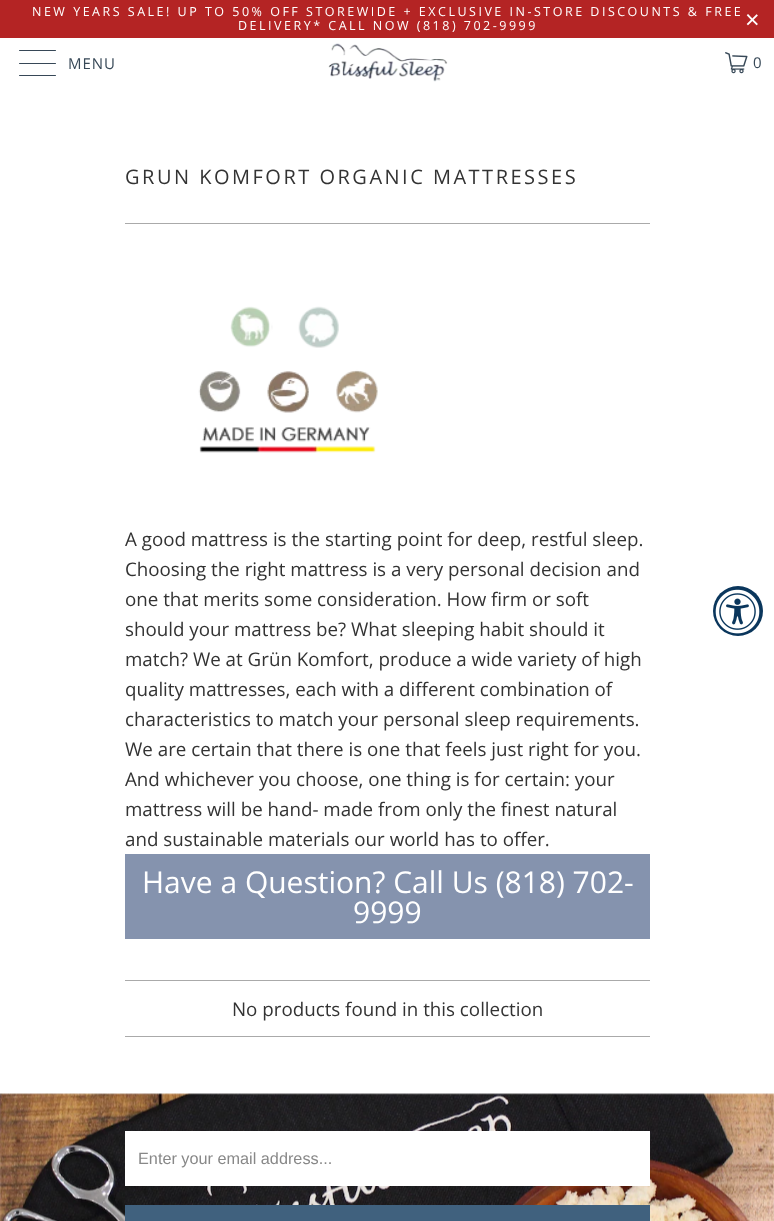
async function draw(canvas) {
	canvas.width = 774;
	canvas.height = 1221;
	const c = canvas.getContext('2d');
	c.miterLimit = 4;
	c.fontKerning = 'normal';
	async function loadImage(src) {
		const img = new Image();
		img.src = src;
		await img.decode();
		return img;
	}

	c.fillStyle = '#fff';
	c.fillRect(0, 0, 774, 1221);
	c.fillStyle = '#b42424';
	c.fillRect(0, 0, 774, 38);
	c.letterSpacing = '2.5px';
	c.font = '12.5px Open Sans';
	c.fillStyle = '#fff';
	c.fillText('NEW YEARS SALE! UP TO 50% OFF STOREWIDE + EXCLUSIVE IN-STORE DISCOUNTS & FREE', 32, 16);
	c.fillText('DELIVERY* CALL NOW (818) 702-9999', 238, 30);
	c.font = '25px Liberation Sans';
	c.fillText('×', 745, 28);
	c.fillStyle = '#374857';
	c.beginPath();
	c.roundRect(19, 50, 37, 1, 0.5);
	c.fill();
	c.beginPath();
	c.roundRect(19, 63, 37, 1, 0.5);
	c.fill();
	c.beginPath();
	c.roundRect(19, 75, 37, 1, 0.5);
	c.fill();
	c.letterSpacing = '1px';
	c.font = '15px Open Sans';
	c.fillText('MENU', 68, 69);
	c.drawImage(await loadImage('img1.png'), 328, 43, 120, 39);
	c.drawImage(await loadImage('img2.png'), 725, 52, 23, 22);
	c.fillText('0', 753, 68);
	c.letterSpacing = '2.5px';
	c.font = '20px Open Sans';
	c.fillStyle = '#333';
	c.fillText('GRUN KOMFORT ORGANIC MATTRESSES', 125, 184);
	c.fillStyle = '#aaa';
	c.fillRect(125, 223, 525, 1);
	c.drawImage(await loadImage('img3.png'), 198, 306, 180, 147);
	c.letterSpacing = '0px';
	c.font = '18.75px Open Sans';
	c.fillStyle = '#333';
	for (const [text, x, y] of [
		['A good mattress is the starting point for deep, restful sleep.', 125, 546],
		['Choosing the right mattress is a very personal decision and', 125, 576],
		['one that merits some consideration. How firm or soft', 125, 606],
		['should your mattress be? What sleeping habit should it', 125, 636],
		['match? We at Grün Komfort, produce a wide variety of high', 125, 666],
		['quality mattresses, each with a different combination of', 125, 696],
		['characteristics to match your personal sleep requirements.', 125, 726],
		['We are certain that there is one that feels just right for you.', 125, 756],
		['And whichever you choose, one thing is for certain: your', 125, 786],
		['mattress will be hand- made from only the finest natural', 125, 816],
		['and sustainable materials our world has to offer.', 125, 846],
	]) {
		c.fillText(text, x, y);
	}
	c.fillStyle = '#8593ae';
	c.fillRect(125, 854, 525, 85);
	c.font = '30px Open Sans';
	c.fillStyle = '#fff';
	c.fillText('Have a Question? Call Us (818) 702-', 142, 893);
	c.fillText('9999', 353, 923);
	c.fillStyle = '#aaa';
	c.fillRect(125, 980, 525, 1);
	c.fillRect(125, 1036, 525, 1);
	c.font = '18.75px Open Sans';
	c.fillStyle = '#333';
	c.fillText('No products found in this collection', 232, 1016);
	c.fillStyle = '#0a365c';
	c.beginPath();
	c.arc(738, 611, 25, 0, 2 * Math.PI);
	c.fill();
	c.drawImage(await loadImage('img4.png'), 715, 589, 45, 45);
	c.drawImage(await loadImage('img5.png'), 0, 1093, 774, 128);
	c.fillStyle = '#fff';
	c.fillRect(125, 1131, 525, 55);
	c.font = '16.25px Liberation Sans';
	c.fillStyle = '#888';
	c.fillText('Enter your email address...', 138, 1164);
	c.fillStyle = '#40617e';
	c.fillRect(125, 1205, 525, 16);
}

draw(document.querySelector('canvas'));
